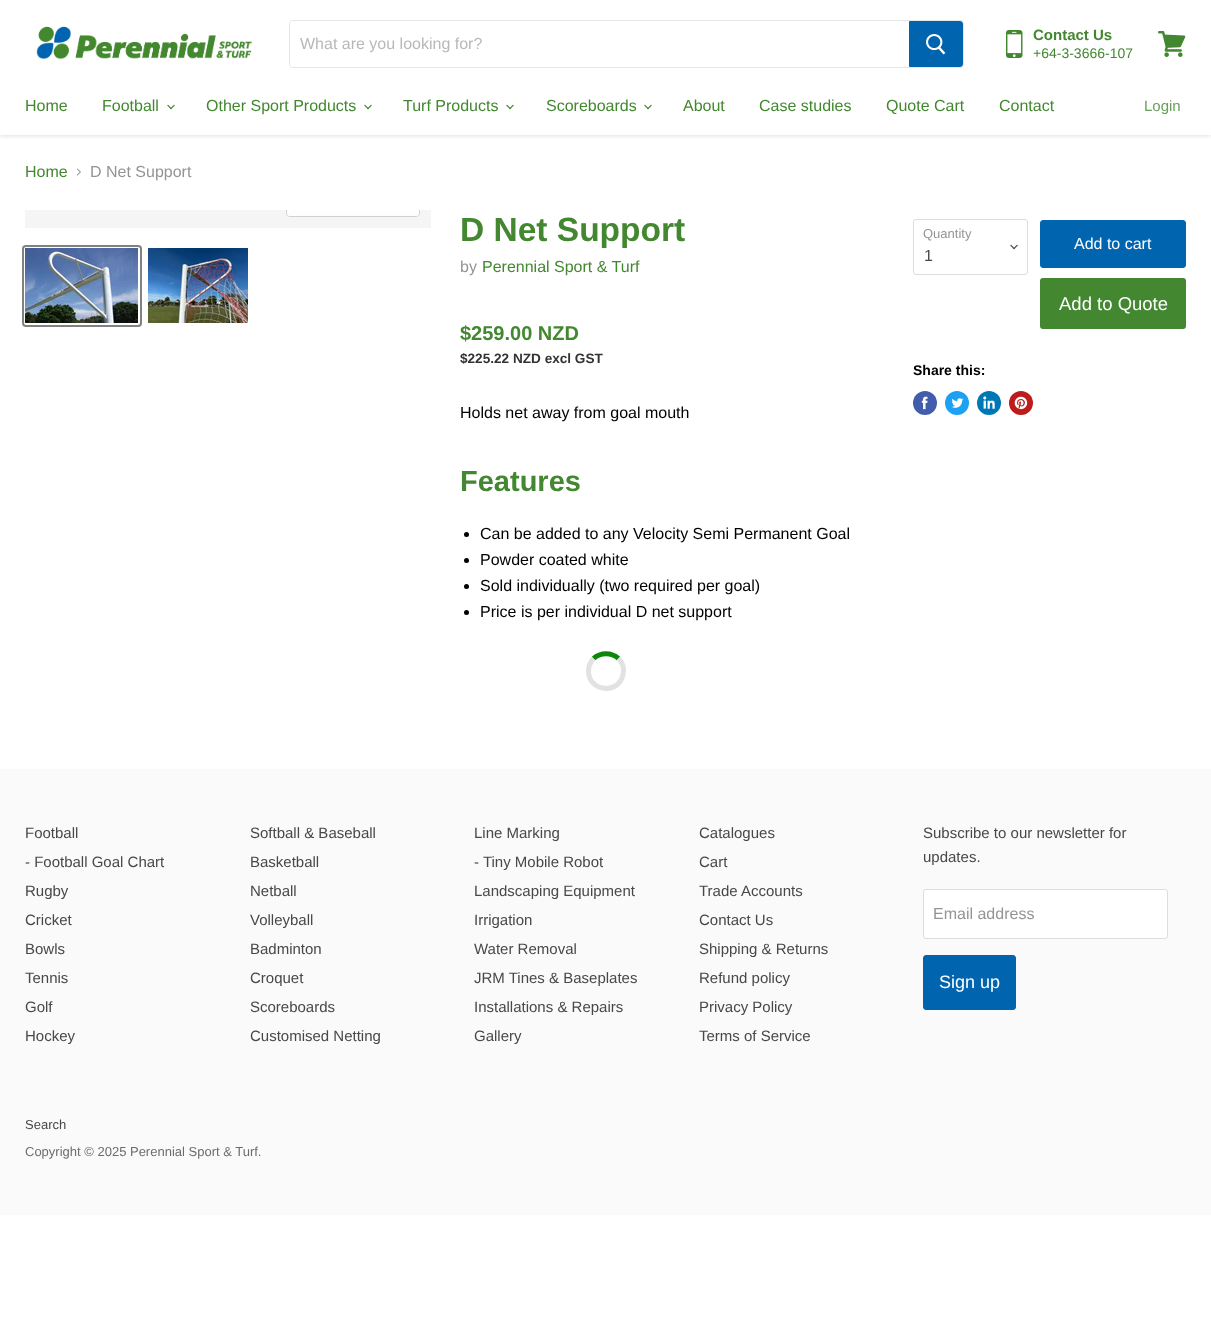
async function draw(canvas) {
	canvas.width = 1211;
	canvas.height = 1330;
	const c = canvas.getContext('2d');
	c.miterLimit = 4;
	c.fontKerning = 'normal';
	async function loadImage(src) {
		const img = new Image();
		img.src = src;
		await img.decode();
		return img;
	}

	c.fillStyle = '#fff';
	c.fillRect(0, 0, 1211, 1330);
	c.save();
	c.beginPath();
	c.rect(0, 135, 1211, 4);
	c.clip();
	c.fillStyle = '#80808040';
	c.filter = 'blur(2px)';
	c.beginPath();
	c.rect(0, 1, 1211, 135);
	c.fill();
	c.filter = 'none';
	c.restore();
	c.drawImage(await loadImage('img1.png'), 36, 26, 216, 34);
	c.beginPath();
	c.roundRect(289.5, 20.5, 674, 47, 3.5);
	c.strokeStyle = '#e6e6e6';
	c.stroke();
	c.beginPath();
	c.roundRect(290, 21, 619, 46, [3, 0, 0, 3]);
	c.fill();
	c.font = '16px Liberation Sans';
	c.fillStyle = '#b8b8b8';
	c.fillText('What are you looking for?', 300, 49);
	c.fillStyle = '#0064af';
	c.beginPath();
	c.roundRect(909.5, 21.5, 53, 45, [0, 2.5, 2.5, 0]);
	c.fill();
	c.strokeStyle = '#0064af';
	c.stroke();
	c.drawImage(await loadImage('img2.png'), 926, 34, 20, 21);
	c.drawImage(await loadImage('img3.png'), 1006, 30, 17, 28);
	c.font = 'bold 15px Liberation Sans';
	c.fillStyle = '#438730';
	c.fillText('Contact Us', 1033, 40);
	c.font = '14px Liberation Sans';
	c.fillText('+64-3-3666-107', 1033, 58);
	c.drawImage(await loadImage('img4.png'), 1158, 31, 28, 26);
	c.font = '16px Liberation Sans';
	c.fillText('Home', 25, 111);
	c.fillText('Football', 102, 111);
	c.drawImage(await loadImage('img5.png'), 167, 104, 8, 6);
	c.fillText('Other Sport Products', 206, 111);
	c.drawImage(await loadImage('img5.png'), 364, 104, 8, 6);
	c.fillText('Turf Products', 403, 111);
	c.drawImage(await loadImage('img5.png'), 506, 104, 8, 6);
	c.fillText('Scoreboards', 546, 111);
	c.drawImage(await loadImage('img5.png'), 644, 104, 8, 6);
	for (const [text, x, y] of [
		['About', 683, 111],
		['Case studies', 759, 111],
		['Quote Cart', 886, 111],
		['Contact', 999, 111],
	]) {
		c.fillText(text, x, y);
	}
	c.font = '15px Liberation Sans';
	c.fillStyle = '#699f59';
	c.fillText('Login', 1144, 111);
	c.font = '16px Liberation Sans';
	c.fillStyle = '#438730';
	c.fillText('Home', 25, 177);
	c.drawImage(await loadImage('img6.png'), 76, 168, 5, 8);
	c.fillStyle = '#949494';
	c.fillText('D Net Support', 90, 177);
	c.fillStyle = '#f5f5f5';
	c.fillRect(25, 210, 406, 18);
	c.save();
	c.beginPath();
	c.rect(25, 210, 406, 18);
	c.clip();
	c.beginPath();
	c.roundRect(286.5, 187.5, 133, 29, 3.5);
	c.strokeStyle = '#d0d0d0';
	c.stroke();
	c.restore();
	c.fillStyle = '#ffffffe6';
	c.beginPath();
	c.roundRect(287, 210, 132, 6, [0, 0, 3, 3]);
	c.fill();
	c.beginPath();
	c.roundRect(23, 246, 118, 80, 3);
	c.strokeStyle = '#818181';
	c.lineWidth = 2;
	c.stroke();
	c.drawImage(await loadImage('img7.png'), 25, 248, 113, 75);
	c.drawImage(await loadImage('img8.png'), 148, 248, 100, 75);
	c.font = 'bold 33.5px Liberation Sans';
	c.fillStyle = '#438730';
	c.fillText('D Net Support', 460, 241);
	c.font = '16px Liberation Sans';
	c.fillStyle = '#949494';
	c.fillText('by', 460, 272);
	c.fillStyle = '#438730';
	c.fillText('Perennial Sport & Turf', 482, 272);
	c.font = 'bold 20px Liberation Sans';
	c.fillText('$259.00 NZD', 460, 340);
	c.font = 'bold 13.6px Liberation Sans';
	c.fillStyle = '#333';
	c.fillText('$225.22 NZD excl GST', 460, 363);
	c.font = '16px Liberation Sans';
	c.fillStyle = '#000';
	c.fillText('Holds net away from goal mouth', 460, 418);
	c.font = 'bold 29px Liberation Sans';
	c.fillStyle = '#438730';
	c.fillText('Features', 460, 491);
	c.fillStyle = '#000';
	c.beginPath();
	c.arc(466.5, 534.5, 2.5, 0, 2 * Math.PI);
	c.fill();
	c.font = '16px Liberation Sans';
	c.fillText('Can be added to any Velocity Semi Permanent Goal', 480, 539);
	c.beginPath();
	c.arc(466.5, 560.5, 2.5, 0, 2 * Math.PI);
	c.fill();
	c.fillText('Powder coated white', 480, 565);
	c.beginPath();
	c.arc(466.5, 586.5, 2.5, 0, 2 * Math.PI);
	c.fill();
	c.fillText('Sold individually (two required per goal)', 480, 591);
	c.beginPath();
	c.arc(466.5, 612.5, 2.5, 0, 2 * Math.PI);
	c.fill();
	c.fillText('Price is per individual D net support', 480, 617);
	c.beginPath();
	c.roundRect(913.5, 219.5, 114, 55, 2.5);
	c.strokeStyle = '#ddd';
	c.lineWidth = 1;
	c.stroke();
	c.font = '13px Liberation Sans';
	c.fillStyle = '#949494';
	c.fillText('Quantity', 923, 238);
	c.drawImage(await loadImage('img9.png'), 1010, 244, 8, 6);
	c.font = '16px Liberation Sans';
	c.fillStyle = '#484848';
	c.fillText('1', 924, 261);
	c.fillStyle = '#0064af';
	c.beginPath();
	c.roundRect(1040.5, 220.5, 145, 47, 2.5);
	c.fill();
	c.strokeStyle = '#0064af';
	c.stroke();
	c.fillStyle = '#fff';
	c.fillText('Add to cart', 1074, 249);
	c.fillStyle = '#438730';
	c.beginPath();
	c.roundRect(1040, 278, 146, 51, 3);
	c.fill();
	c.font = '18.5px Liberation Sans';
	c.fillStyle = '#fff';
	c.fillText('Add to Quote', 1059, 310);
	c.font = 'bold 14px Liberation Sans';
	c.fillStyle = '#000';
	c.fillText('Share this:', 913, 375);
	c.fillStyle = '#425dab';
	c.beginPath();
	c.arc(925, 403, 12, 0, 2 * Math.PI);
	c.fill();
	c.drawImage(await loadImage('img10.png'), 921, 396, 7, 14);
	c.fillStyle = '#1da1f2';
	c.beginPath();
	c.arc(957, 403, 12, 0, 2 * Math.PI);
	c.fill();
	c.drawImage(await loadImage('img11.png'), 951, 398, 13, 10);
	c.fillStyle = '#0077b5';
	c.beginPath();
	c.arc(989, 403, 12, 0, 2 * Math.PI);
	c.fill();
	c.drawImage(await loadImage('img12.png'), 983, 396, 12, 13);
	c.fillStyle = '#bd1c1c';
	c.beginPath();
	c.arc(1021, 403, 12, 0, 2 * Math.PI);
	c.fill();
	c.drawImage(await loadImage('img13.png'), 1014, 396, 14, 14);
	c.beginPath();
	c.moveTo(593.5, 658.5);
	c.bezierCurveTo(600.5, 652, 611.5, 652, 618.5, 658.5);
	c.strokeStyle = '#0e8708';
	c.lineWidth = 5;
	c.stroke();
	c.beginPath();
	c.moveTo(618.5, 658.5);
	c.bezierCurveTo(622.5, 662.5, 624.5, 668.5, 623, 674.5);
	c.bezierCurveTo(619, 695, 588.5, 692, 588.5, 671);
	c.bezierCurveTo(588.5, 666.5, 590.5, 662, 593.5, 658.5);
	c.strokeStyle = '#e2e2e2';
	c.stroke();
	c.fillStyle = '#fafafa';
	c.fillRect(0, 769, 1211, 446);
	c.font = '15px Liberation Sans';
	c.fillStyle = '#484848';
	for (const [text, x, y] of [
		['Football', 25, 838],
		['- Football Goal Chart', 25, 867],
		['Rugby', 25, 896],
		['Cricket', 25, 925],
		['Bowls', 25, 954],
		['Tennis', 25, 983],
		['Golf', 25, 1012],
		['Hockey', 25, 1041],
		['Softball & Baseball', 250, 838],
		['Basketball', 250, 867],
		['Netball', 250, 896],
		['Volleyball', 250, 925],
		['Badminton', 250, 954],
		['Croquet', 250, 983],
		['Scoreboards', 250, 1012],
		['Customised Netting', 250, 1041],
		['Line Marking', 474, 838],
		['- Tiny Mobile Robot', 474, 867],
		['Landscaping Equipment', 474, 896],
		['Irrigation', 474, 925],
		['Water Removal', 474, 954],
		['JRM Tines & Baseplates', 474, 983],
		['Installations & Repairs', 474, 1012],
		['Gallery', 474, 1041],
		['Catalogues', 699, 838],
		['Cart', 699, 867],
		['Trade Accounts', 699, 896],
		['Contact Us', 699, 925],
		['Shipping & Returns', 699, 954],
		['Refund policy', 699, 983],
		['Privacy Policy', 699, 1012],
		['Terms of Service', 699, 1041],
		['Subscribe to our newsletter for', 923, 838],
		['updates.', 923, 862],
	]) {
		c.fillText(text, x, y);
	}
	c.fillStyle = '#fff';
	c.beginPath();
	c.roundRect(923.5, 889.5, 244, 49, 2.5);
	c.fill();
	c.strokeStyle = '#ddd';
	c.lineWidth = 1;
	c.stroke();
	c.font = '16px Liberation Sans';
	c.fillStyle = '#949494';
	c.fillText('Email address', 933, 919);
	c.fillStyle = '#0064af';
	c.beginPath();
	c.roundRect(923.5, 955.5, 92, 54, 2.5);
	c.fill();
	c.strokeStyle = '#0064af';
	c.stroke();
	c.font = '18px Liberation Sans';
	c.fillStyle = '#fff';
	c.fillText('Sign up', 939, 988);
	c.font = '13px Liberation Sans';
	c.fillStyle = '#484848';
	c.fillText('Search', 25, 1129);
	c.fillStyle = '#6c6c6c';
	c.fillText('Copyright © 2025 Perennial Sport & Turf.', 25, 1156);
}

draw(document.querySelector('canvas'));
